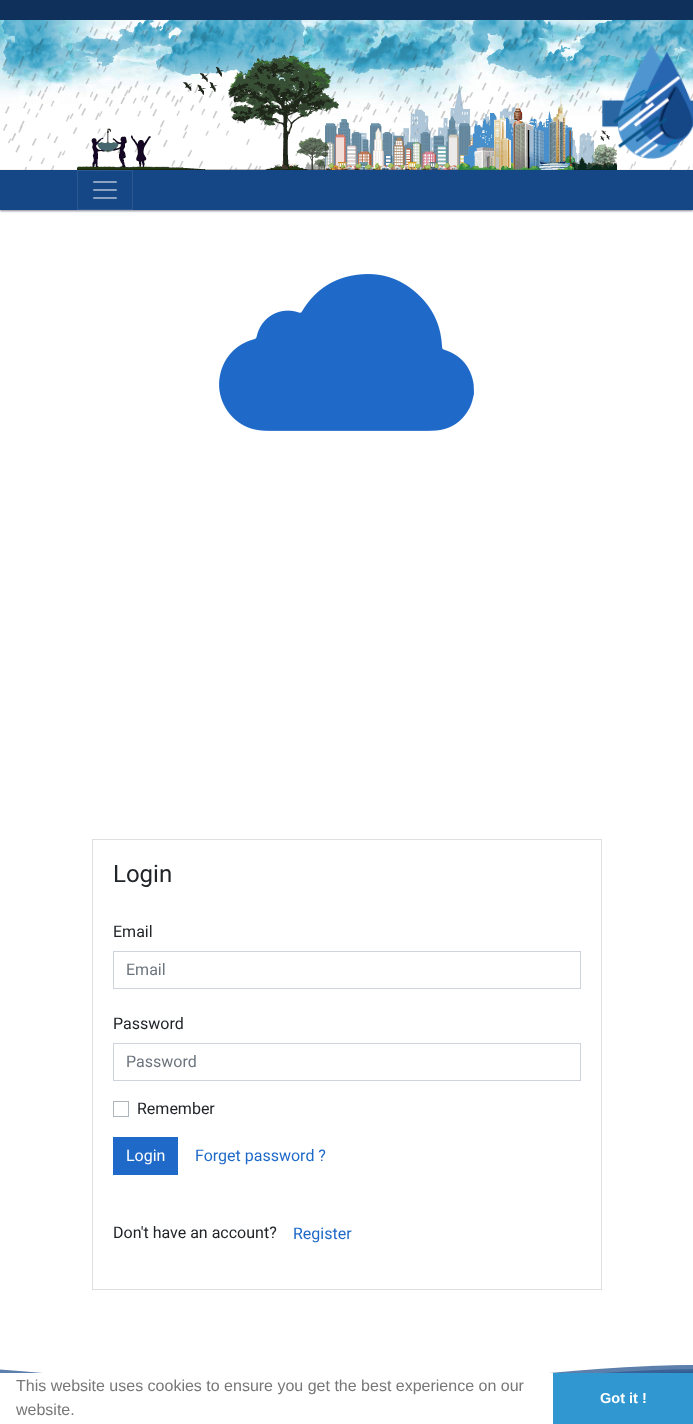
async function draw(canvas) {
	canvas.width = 693;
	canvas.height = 1424;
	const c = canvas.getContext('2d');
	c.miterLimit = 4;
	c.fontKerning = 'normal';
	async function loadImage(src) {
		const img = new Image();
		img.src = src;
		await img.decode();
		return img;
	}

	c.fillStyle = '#fff';
	c.fillRect(0, 0, 693, 1424);
	c.fillStyle = '#0e305a';
	c.fillRect(0, 0, 693, 20);
	c.drawImage(await loadImage('img1.png'), 0, 20, 693, 102);
	c.drawImage(await loadImage('img2.png'), 1, 20, 692, 62);
	c.drawImage(await loadImage('img3.png'), 3, 21, 690, 149);
	c.drawImage(await loadImage('img4.png'), 77, 55, 540, 115);
	c.fillStyle = '#00052880';
	c.filter = 'blur(1px)';
	c.beginPath();
	c.rect(0, 171, 693, 40);
	c.fill();
	c.filter = 'none';
	c.fillStyle = '#154786';
	c.fillRect(0, 170, 693, 40);
	c.drawImage(await loadImage('img5.png'), 602, 44, 91, 115);
	c.strokeStyle = '#2c5992';
	c.strokeRect(77.5, 170.5, 55, 39);
	c.drawImage(await loadImage('img6.png'), 93, 181, 24, 18);
	c.drawImage(await loadImage('img7.png'), 219, 274, 255, 157);
	c.strokeStyle = '#dfdfdf';
	c.strokeRect(92.5, 839.5, 509, 450);
	c.font = '24px Roboto';
	c.fillStyle = '#212529';
	c.fillText('Login', 113, 882);
	c.font = '16px Roboto';
	c.fillText('Email', 113, 937);
	c.strokeStyle = '#ced4da';
	c.strokeRect(113.5, 951.5, 467, 37);
	c.fillStyle = '#6c757d';
	c.fillText('Email', 126, 975);
	c.fillStyle = '#212529';
	c.fillText('Password', 113, 1029);
	c.strokeRect(113.5, 1043.5, 467, 37);
	c.fillStyle = '#6c757d';
	c.fillText('Password', 126, 1067);
	c.strokeStyle = '#adb5bd';
	c.strokeRect(113.5, 1101.5, 15, 15);
	c.fillStyle = '#212529';
	c.fillText('Remember', 137, 1114);
	c.fillStyle = '#1f6ac8';
	c.fillRect(113, 1137, 65, 38);
	c.fillStyle = '#fff';
	c.fillText('Login', 126, 1161);
	c.fillStyle = '#1f6ac8';
	c.fillText('Forget password ?', 195, 1161);
	c.fillStyle = '#212529';
	c.fillText('Don\'t have an account?', 113, 1238);
	c.fillStyle = '#1f6ac8';
	c.fillText('Register', 293, 1239);
	c.drawImage(await loadImage('img8.png'), 0, 1364, 693, 9);
	c.font = '16px Liberation Sans';
	c.fillStyle = '#777';
	c.fillText('This website uses cookies to ensure you get the best experience on our', 16, 1391);
	c.fillText('website.', 16, 1415);
	c.fillStyle = '#3097d1';
	c.fillRect(553, 1373, 140, 51);
	c.font = 'bold 14.5px Liberation Sans';
	c.fillStyle = '#fff';
	c.fillText('Got it !', 600, 1403);
}

draw(document.querySelector('canvas'));
